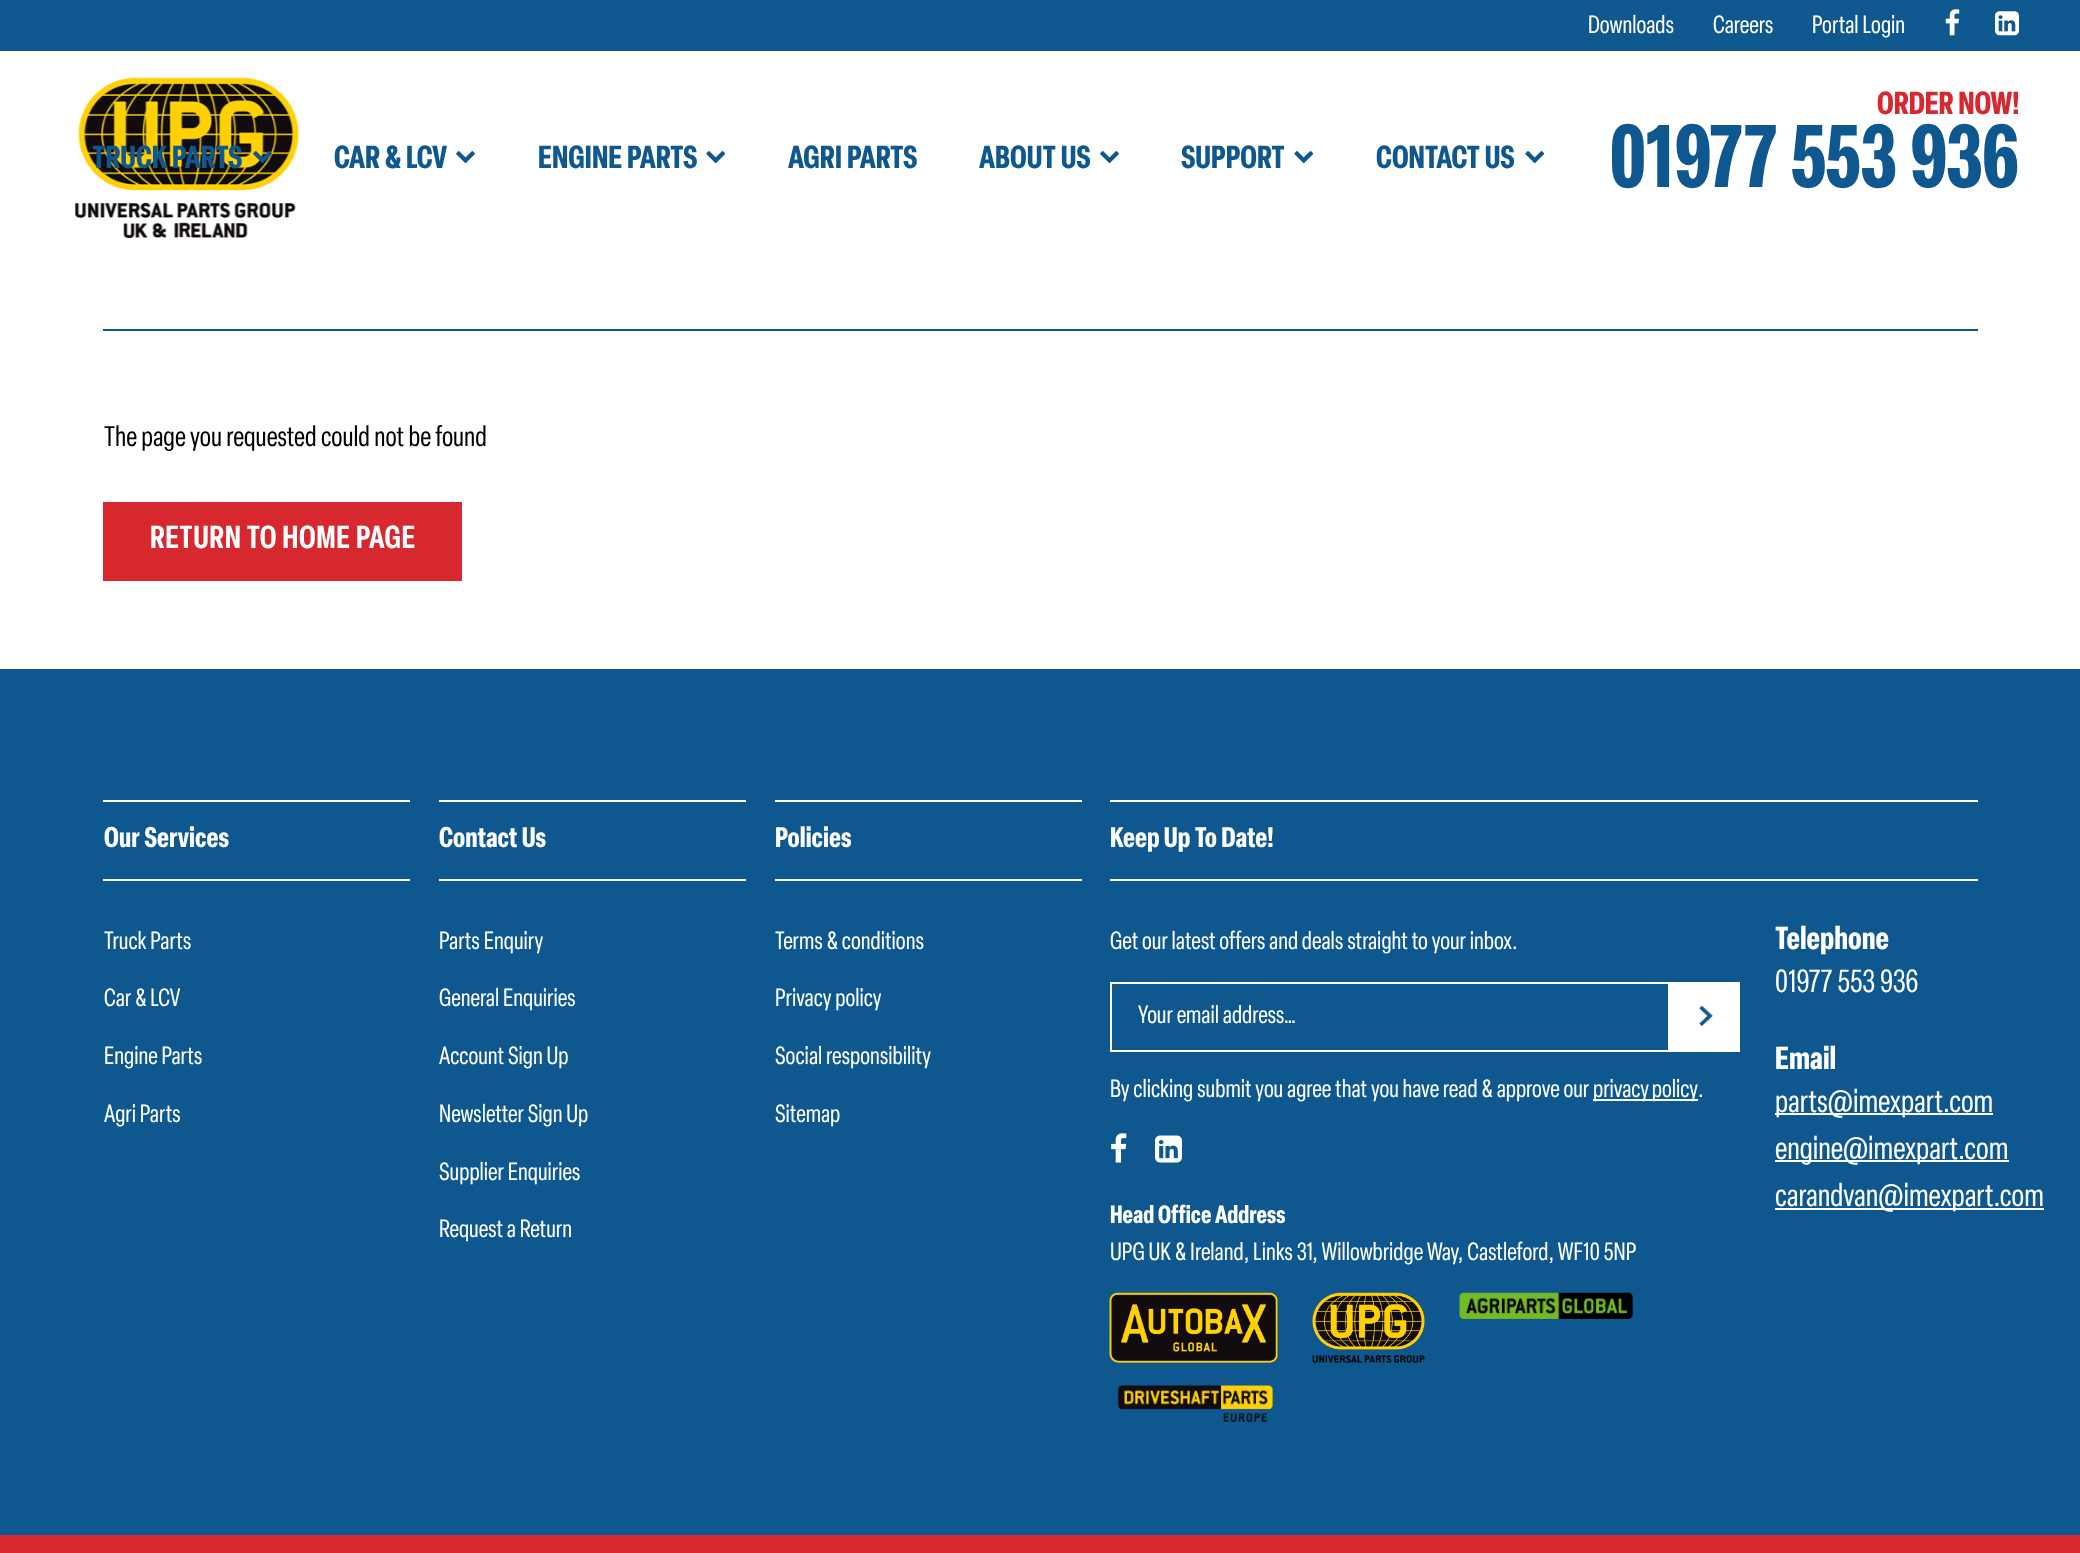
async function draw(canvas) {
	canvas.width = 2080;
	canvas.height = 1553;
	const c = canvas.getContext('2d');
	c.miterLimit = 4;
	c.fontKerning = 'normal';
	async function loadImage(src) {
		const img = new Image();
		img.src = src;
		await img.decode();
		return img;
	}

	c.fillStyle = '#fff';
	c.fillRect(0, 0, 2080, 1553);
	c.fillStyle = '#0e578f';
	c.fillRect(0, 0, 2080, 51);
	c.font = '24.5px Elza';
	c.fillStyle = '#fff';
	for (const [text, x, y] of [
		['Downloads', 1588, 33],
		['Careers', 1713, 33],
		['Portal Login', 1812, 33],
	]) {
		c.fillText(text, x, y);
	}
	c.drawImage(await loadImage('img1.png'), 1945, 9, 15, 27);
	c.drawImage(await loadImage('img2.png'), 1995, 11, 24, 25);
	c.drawImage(await loadImage('img3.png'), 74, 77, 226, 162);
	c.font = 'bold 31.5px Elza';
	c.fillStyle = '#d7282f';
	c.fillText('ORDER NOW!', 1877, 114);
	c.font = 'bold 87.5px Elza';
	c.fillStyle = '#0e578f';
	c.fillText('01977 553 936', 1610, 187);
	c.font = 'bold 31.5px Elza';
	c.fillText('TRUCK PARTS', 92, 168);
	c.drawImage(await loadImage('img4.png'), 253, 151, 19, 13);
	c.fillText('CAR & LCV', 334, 168);
	c.drawImage(await loadImage('img5.png'), 456, 151, 19, 13);
	c.fillText('ENGINE PARTS', 538, 168);
	c.drawImage(await loadImage('img6.png'), 706, 151, 20, 13);
	c.fillText('AGRI PARTS', 788, 168);
	c.fillText('ABOUT US', 979, 168);
	c.drawImage(await loadImage('img5.png'), 1100, 151, 19, 13);
	c.fillText('SUPPORT', 1181, 168);
	c.drawImage(await loadImage('img6.png'), 1294, 151, 20, 13);
	c.fillText('CONTACT US', 1376, 168);
	c.drawImage(await loadImage('img6.png'), 1525, 151, 20, 13);
	c.fillRect(103, 329, 1875, 2);
	c.font = '28px Elza';
	c.fillStyle = '#000';
	c.fillText('The page you requested could not be found', 104, 446);
	c.fillStyle = '#d7282f';
	c.fillRect(103, 502, 359, 79);
	c.letterSpacing = '0.6px';
	c.font = '600 31.5px Elza';
	c.fillStyle = '#fff';
	c.fillText('RETURN TO HOME PAGE', 150, 548);
	for (const [x, y, w, h, color] of [
		[0, 669, 2080, 866, '#0e578f'],
		[103, 800, 307, 2, '#fff'],
		[103, 879, 307, 2, '#fff'],
	]) {
		c.fillStyle = color;
		c.fillRect(x, y, w, h);
	}
	c.letterSpacing = '0px';
	c.font = 'bold 28px Elza';
	c.fillText('Our Services', 104, 847);
	c.font = '24.5px Elza';
	for (const [text, x, y] of [
		['Truck Parts', 104, 949],
		['Car & LCV', 104, 1006],
		['Engine Parts', 104, 1064],
		['Agri Parts', 104, 1122],
	]) {
		c.fillText(text, x, y);
	}
	c.fillRect(439, 800, 307, 2);
	c.fillRect(439, 879, 307, 2);
	c.font = 'bold 28px Elza';
	c.fillText('Contact Us', 439, 847);
	c.font = '24.5px Elza';
	for (const [text, x, y] of [
		['Parts Enquiry', 439, 949],
		['General Enquiries', 439, 1006],
		['Account Sign Up', 439, 1064],
		['Newsletter Sign Up', 439, 1122],
		['Supplier Enquiries', 439, 1180],
		['Request a Return', 439, 1237],
	]) {
		c.fillText(text, x, y);
	}
	c.fillRect(775, 800, 307, 2);
	c.fillRect(775, 879, 307, 2);
	c.font = 'bold 28px Elza';
	c.fillText('Policies', 775, 847);
	c.font = '24.5px Elza';
	for (const [text, x, y] of [
		['Terms & conditions', 775, 949],
		['Privacy policy', 775, 1006],
		['Social responsibility', 775, 1064],
		['Sitemap', 775, 1122],
	]) {
		c.fillText(text, x, y);
	}
	c.fillRect(1110, 800, 868, 2);
	c.fillRect(1110, 879, 868, 2);
	c.font = 'bold 28px Elza';
	c.fillText('Keep Up To Date!', 1110, 847);
	c.font = '24.5px Elza';
	c.fillText('Get our latest offers and deals straight to your inbox.', 1110, 949);
	c.strokeStyle = '#fff';
	c.lineWidth = 2;
	c.strokeRect(1111, 983, 558, 68);
	c.save();
	c.beginPath();
	c.rect(1138, 1005, 504, 26);
	c.clip();
	c.fillText('Your email address…', 1138, 1023);
	c.restore();
	c.fillRect(1670, 982, 70, 70);
	c.drawImage(await loadImage('img7.png'), 1699, 1005, 14, 21);
	c.fillText('By clicking submit you agree that you have read & approve our', 1110, 1097);
	c.fillRect(1593, 1099, 105, 2);
	c.wordSpacing = '-1px';
	c.fillText('privacy policy', 1593, 1097);
	c.wordSpacing = '0px';
	c.fillText('.', 1698, 1097);
	c.drawImage(await loadImage('img8.png'), 1111, 1133, 16, 30);
	c.drawImage(await loadImage('img9.png'), 1155, 1135, 27, 28);
	c.font = 'bold 24.5px Elza';
	c.fillText('Head Office Address', 1110, 1223);
	c.font = '24.5px Elza';
	c.fillText('UPG UK & Ireland, Links 31, Willowbridge Way, Castleford, WF10 5NP', 1110, 1260);
	c.drawImage(await loadImage('img10.png'), 1109, 1292, 169, 71);
	c.drawImage(await loadImage('img11.png'), 1312, 1292, 113, 71);
	c.drawImage(await loadImage('img12.png'), 1459, 1292, 174, 27);
	c.drawImage(await loadImage('img13.png'), 1117, 1385, 157, 38);
	c.font = 'bold 31.5px Elza';
	c.fillText('Telephone', 1775, 949);
	c.font = '31.5px Elza';
	c.fillText('01977 553 936', 1775, 992);
	c.font = 'bold 31.5px Elza';
	c.fillText('Email', 1775, 1069);
	c.fillRect(1775, 1113, 218, 2);
	c.font = '31.5px Elza';
	c.fillText('parts@imexpart.com', 1775, 1112);
	c.fillRect(1775, 1160, 234, 2);
	c.fillText('engine@imexpart.com', 1775, 1159);
	c.fillRect(1775, 1208, 269, 2);
	c.fillText('carandvan@imexpart.com', 1775, 1206);
	c.fillStyle = '#d7282f';
	c.fillRect(0, 1535, 2080, 18);
}

draw(document.querySelector('canvas'));
